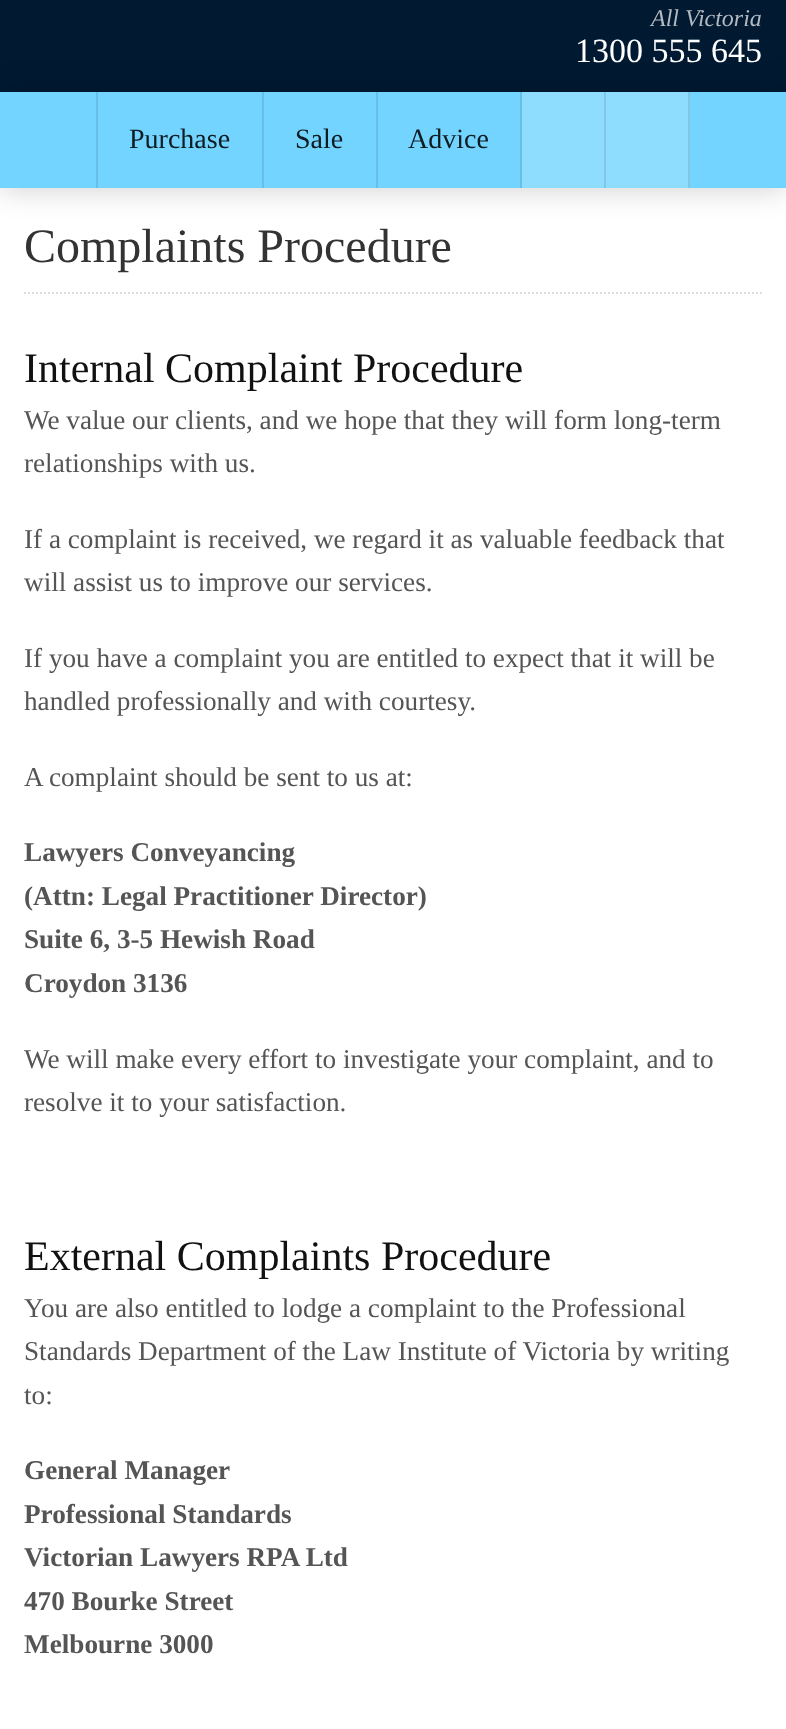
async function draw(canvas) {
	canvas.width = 786;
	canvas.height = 1729;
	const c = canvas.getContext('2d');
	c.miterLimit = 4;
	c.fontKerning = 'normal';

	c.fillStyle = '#fff';
	c.fillRect(0, 0, 786, 1729);
	c.fillStyle = '#011a32';
	c.fillRect(0, 0, 786, 92);
	c.font = 'italic 24px Liberation Serif';
	c.fillStyle = '#b3bac2';
	c.fillText('All Victoria', 651, 26);
	c.font = '34px Liberation Serif';
	c.fillStyle = '#fff';
	c.fillText('1300 555 645', 575, 62);
	c.fillStyle = '#00000033';
	c.filter = 'blur(15px)';
	c.beginPath();
	c.rect(0, 92, 786, 96);
	c.fill();
	c.filter = 'none';
	for (const [x, y, w, h, color] of [
		[0, 92, 786, 96, '#72d4ff'],
		[262, 92, 2, 96, '#67bfe6'],
		[96, 92, 2, 96, '#67bfe6'],
	]) {
		c.fillStyle = color;
		c.fillRect(x, y, w, h);
	}
	c.font = '28px Liberation Serif';
	c.fillStyle = '#0f1c21';
	c.fillText('Purchase', 129, 148);
	c.fillStyle = '#67bfe6';
	c.fillRect(376, 92, 2, 96);
	c.fillStyle = '#0f1c21';
	c.fillText('Sale', 295, 148);
	c.fillStyle = '#67bfe6';
	c.fillRect(520, 92, 2, 96);
	c.fillStyle = '#0f1c21';
	c.fillText('Advice', 408, 148);
	for (const [x, y, w, h, color] of [
		[522, 92, 82, 96, '#8eddff'],
		[604, 92, 2, 96, '#80c7e6'],
		[606, 92, 82, 96, '#8eddff'],
		[688, 92, 2, 96, '#80c7e6'],
	]) {
		c.fillStyle = color;
		c.fillRect(x, y, w, h);
	}
	c.beginPath();
	c.moveTo(24, 293);
	c.lineTo(762, 293);
	c.strokeStyle = '#ddd';
	c.lineWidth = 2;
	c.setLineDash([2, 2]);
	c.stroke();
	c.font = '48px Liberation Serif';
	c.fillStyle = '#333';
	c.fillText('Complaints Procedure', 24, 262);
	c.font = '42px Liberation Serif';
	c.fillStyle = '#111';
	c.fillText('Internal Complaint Procedure', 24, 382);
	c.font = '27.2px Liberation Serif';
	c.fillStyle = '#555';
	for (const [text, x, y] of [
		['We value our clients, and we hope that they will form long-term', 24, 429],
		['relationships with us.', 24, 472],
		['If a complaint is received, we regard it as valuable feedback that', 24, 548],
		['will assist us to improve our services.', 24, 591],
		['If you have a complaint you are entitled to expect that it will be', 24, 667],
		['handled professionally and with courtesy.', 24, 710],
		['A complaint should be sent to us at:', 24, 786],
	]) {
		c.fillText(text, x, y);
	}
	c.font = 'bold 27.2px Liberation Serif';
	for (const [text, x, y] of [
		['Lawyers Conveyancing', 24, 861],
		['(Attn: Legal Practitioner Director)', 24, 905],
		['Suite 6, 3-5 Hewish Road', 24, 948],
		['Croydon 3136', 24, 992],
	]) {
		c.fillText(text, x, y);
	}
	c.font = '27.2px Liberation Serif';
	c.fillText('We will make every effort to investigate your complaint, and to', 24, 1068);
	c.fillText('resolve it to your satisfaction.', 24, 1111);
	c.font = '42px Liberation Serif';
	c.fillStyle = '#111';
	c.fillText('External Complaints Procedure', 24, 1270);
	c.font = '27.2px Liberation Serif';
	c.fillStyle = '#555';
	for (const [text, x, y] of [
		['You are also entitled to lodge a complaint to the Professional', 24, 1317],
		['Standards Department of the Law Institute of Victoria by writing', 24, 1360],
		['to:', 24, 1404],
	]) {
		c.fillText(text, x, y);
	}
	c.font = 'bold 27.2px Liberation Serif';
	for (const [text, x, y] of [
		['General Manager', 24, 1479],
		['Professional Standards', 24, 1523],
		['Victorian Lawyers RPA Ltd', 24, 1566],
		['470 Bourke Street', 24, 1610],
		['Melbourne 3000', 24, 1653],
	]) {
		c.fillText(text, x, y);
	}
}

draw(document.querySelector('canvas'));
